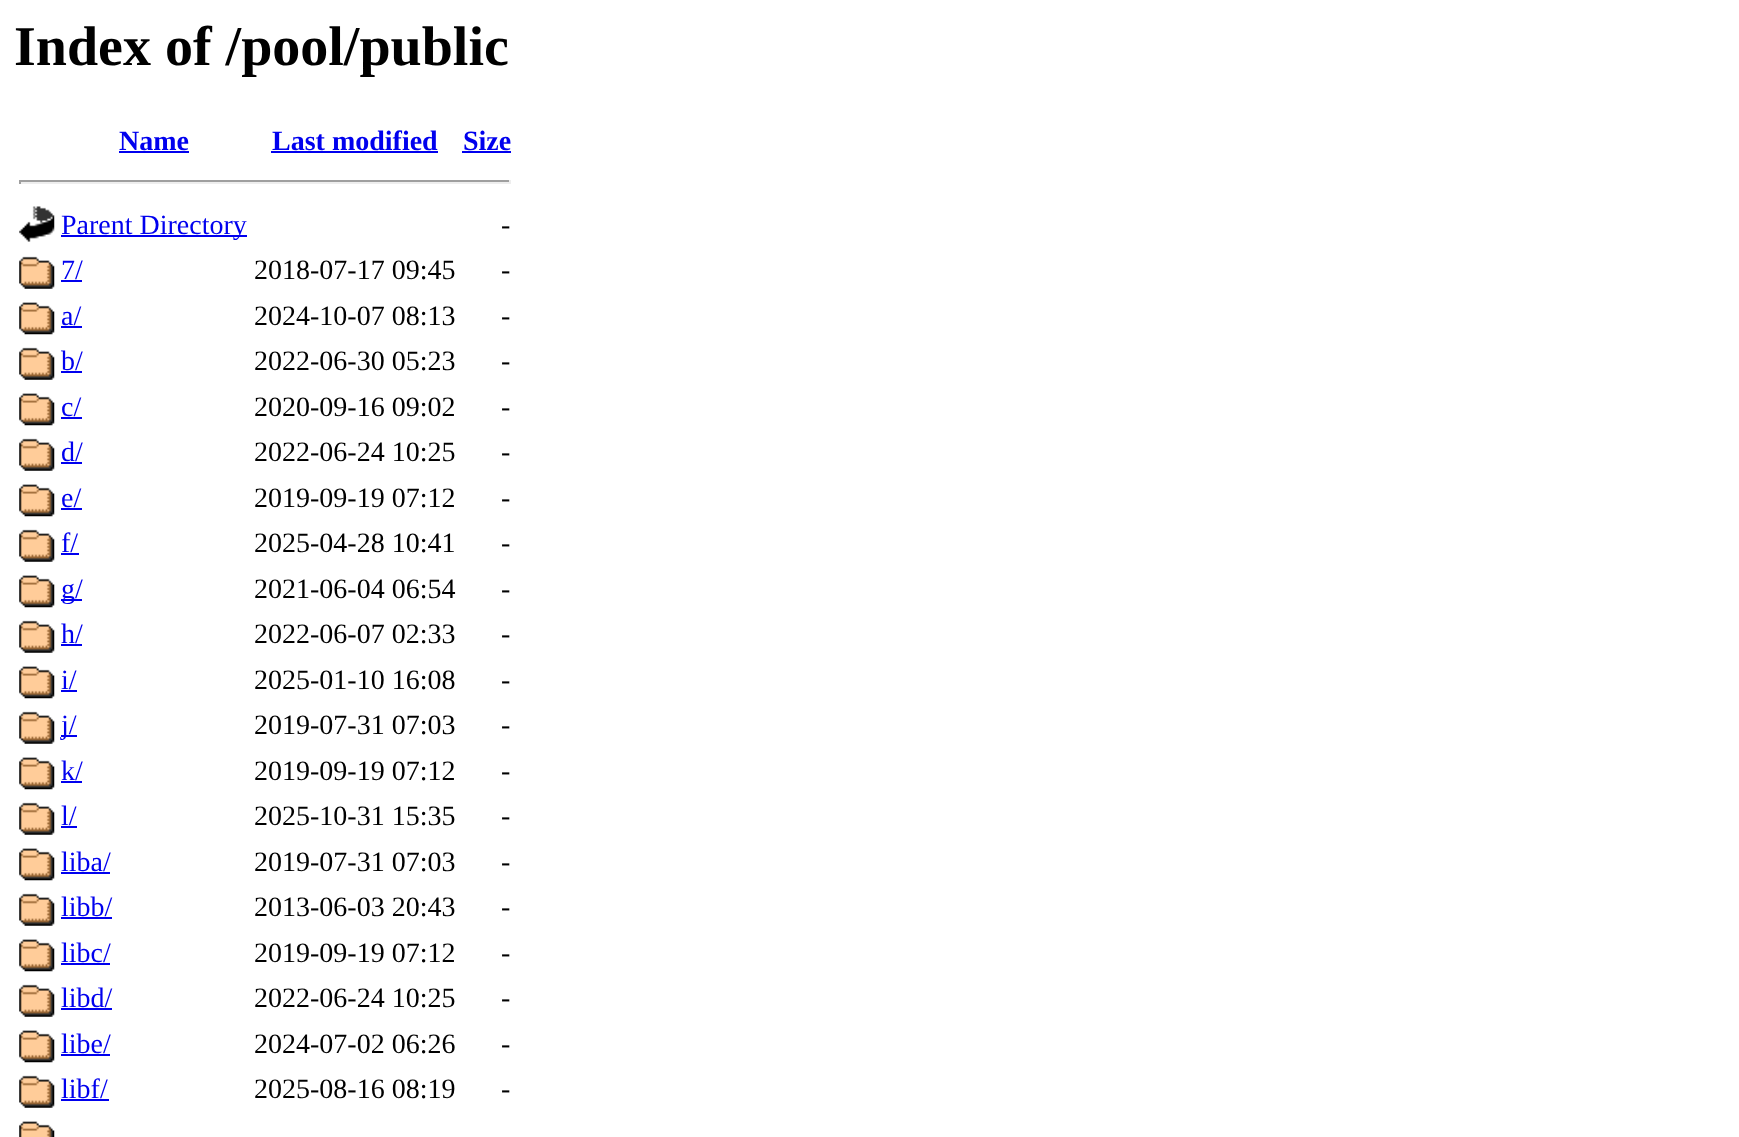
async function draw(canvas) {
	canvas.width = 1739;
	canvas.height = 1137;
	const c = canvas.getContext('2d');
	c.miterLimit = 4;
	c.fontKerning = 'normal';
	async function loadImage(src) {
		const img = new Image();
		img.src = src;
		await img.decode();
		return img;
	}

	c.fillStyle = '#fff';
	c.fillRect(0, 0, 1739, 1137);
	c.font = 'bold 56px Liberation Serif';
	c.fillStyle = '#000';
	c.fillText('Index of /pool/public', 14, 65);
	c.font = 'bold 28px Liberation Serif';
	c.fillStyle = '#00e';
	c.fillText('Name', 119, 150);
	c.fillRect(119, 151, 70, 2);
	c.fillText('Last modified', 272, 150);
	c.fillRect(271, 151, 167, 2);
	c.fillText('Size', 463, 150);
	for (const [x, y, w, h, color] of [
		[462, 151, 49, 2, '#00e'],
		[19, 180, 492, 2, '#9f9f9f'],
		[509, 180, 2, 4, '#eee'],
		[19, 182, 492, 2, '#eee'],
		[19, 180, 2, 4, '#9f9f9f'],
	]) {
		c.fillStyle = color;
		c.fillRect(x, y, w, h);
	}
	c.drawImage(await loadImage('img1.png'), 19, 206, 36, 36);
	c.fillStyle = '#00e';
	c.fillRect(61, 235, 186, 2);
	c.font = '28px Liberation Serif';
	c.fillText('Parent Directory', 61, 234);
	c.fillStyle = '#000';
	c.fillText('-', 501, 234);
	c.drawImage(await loadImage('img2.png'), 19, 256, 36, 33);
	c.fillStyle = '#00e';
	c.fillText('7/', 61, 279);
	c.fillRect(61, 280, 21, 2);
	c.fillStyle = '#000';
	c.fillText('2018-07-17 09:45', 254, 279);
	c.fillText('-', 501, 279);
	c.drawImage(await loadImage('img3.png'), 19, 302, 36, 33);
	c.fillStyle = '#00e';
	c.fillText('a/', 61, 325);
	c.fillRect(61, 326, 21, 2);
	c.fillStyle = '#000';
	c.fillText('2024-10-07 08:13', 254, 325);
	c.fillText('-', 501, 325);
	c.drawImage(await loadImage('img2.png'), 19, 347, 36, 33);
	c.fillStyle = '#00e';
	c.fillText('b/', 61, 370);
	c.fillRect(61, 371, 21, 2);
	c.fillStyle = '#000';
	c.fillText('2022-06-30 05:23', 254, 370);
	c.fillText('-', 501, 370);
	c.drawImage(await loadImage('img3.png'), 19, 393, 36, 33);
	c.fillStyle = '#00e';
	c.fillText('c/', 61, 416);
	c.fillRect(61, 417, 21, 2);
	c.fillStyle = '#000';
	c.fillText('2020-09-16 09:02', 254, 416);
	c.fillText('-', 501, 416);
	c.drawImage(await loadImage('img2.png'), 19, 438, 36, 33);
	c.fillStyle = '#00e';
	c.fillText('d/', 61, 461);
	c.fillRect(61, 462, 21, 2);
	c.fillStyle = '#000';
	c.fillText('2022-06-24 10:25', 254, 461);
	c.fillText('-', 501, 461);
	c.drawImage(await loadImage('img3.png'), 19, 484, 36, 33);
	c.fillStyle = '#00e';
	c.fillText('e/', 61, 507);
	c.fillRect(61, 508, 21, 2);
	c.fillStyle = '#000';
	c.fillText('2019-09-19 07:12', 254, 507);
	c.fillText('-', 501, 507);
	c.drawImage(await loadImage('img2.png'), 19, 529, 36, 33);
	c.fillStyle = '#00e';
	c.fillText('f/', 61, 552);
	c.fillRect(61, 553, 18, 2);
	c.fillStyle = '#000';
	c.fillText('2025-04-28 10:41', 254, 552);
	c.fillText('-', 501, 552);
	c.drawImage(await loadImage('img3.png'), 19, 575, 36, 33);
	c.fillStyle = '#00e';
	c.fillRect(61, 599, 21, 2);
	c.fillText('g/', 61, 598);
	c.fillStyle = '#000';
	c.fillText('2021-06-04 06:54', 254, 598);
	c.fillText('-', 501, 598);
	c.drawImage(await loadImage('img2.png'), 19, 620, 36, 33);
	c.fillStyle = '#00e';
	c.fillText('h/', 61, 643);
	c.fillRect(61, 644, 21, 2);
	c.fillStyle = '#000';
	c.fillText('2022-06-07 02:33', 254, 643);
	c.fillText('-', 501, 643);
	c.drawImage(await loadImage('img3.png'), 19, 666, 36, 33);
	c.fillStyle = '#00e';
	c.fillText('i/', 61, 689);
	c.fillRect(61, 690, 16, 2);
	c.fillStyle = '#000';
	c.fillText('2025-01-10 16:08', 254, 689);
	c.fillText('-', 501, 689);
	c.drawImage(await loadImage('img2.png'), 19, 711, 36, 33);
	c.fillStyle = '#00e';
	c.fillRect(61, 735, 16, 2);
	c.fillText('j/', 61, 734);
	c.fillStyle = '#000';
	c.fillText('2019-07-31 07:03', 254, 734);
	c.fillText('-', 501, 734);
	c.drawImage(await loadImage('img3.png'), 19, 757, 36, 33);
	c.fillStyle = '#00e';
	c.fillText('k/', 61, 780);
	c.fillRect(61, 781, 21, 2);
	c.fillStyle = '#000';
	c.fillText('2019-09-19 07:12', 254, 780);
	c.fillText('-', 501, 780);
	c.drawImage(await loadImage('img2.png'), 19, 802, 36, 33);
	c.fillStyle = '#00e';
	c.fillText('l/', 61, 825);
	c.fillRect(61, 826, 16, 2);
	c.fillStyle = '#000';
	c.fillText('2025-10-31 15:35', 254, 825);
	c.fillText('-', 501, 825);
	c.drawImage(await loadImage('img3.png'), 19, 848, 36, 33);
	c.fillStyle = '#00e';
	c.fillText('liba/', 61, 871);
	c.fillRect(61, 872, 49, 2);
	c.fillStyle = '#000';
	c.fillText('2019-07-31 07:03', 254, 871);
	c.fillText('-', 501, 871);
	c.drawImage(await loadImage('img2.png'), 19, 893, 36, 33);
	c.fillStyle = '#00e';
	c.fillText('libb/', 61, 916);
	c.fillRect(61, 917, 51, 2);
	c.fillStyle = '#000';
	c.fillText('2013-06-03 20:43', 254, 916);
	c.fillText('-', 501, 916);
	c.drawImage(await loadImage('img3.png'), 19, 939, 36, 33);
	c.fillStyle = '#00e';
	c.fillText('libc/', 61, 962);
	c.fillRect(61, 963, 49, 2);
	c.fillStyle = '#000';
	c.fillText('2019-09-19 07:12', 254, 962);
	c.fillText('-', 501, 962);
	c.drawImage(await loadImage('img2.png'), 19, 984, 36, 33);
	c.fillStyle = '#00e';
	c.fillText('libd/', 61, 1007);
	c.fillRect(61, 1008, 51, 2);
	c.fillStyle = '#000';
	c.fillText('2022-06-24 10:25', 254, 1007);
	c.fillText('-', 501, 1007);
	c.drawImage(await loadImage('img3.png'), 19, 1030, 36, 33);
	c.fillStyle = '#00e';
	c.fillText('libe/', 61, 1053);
	c.fillRect(61, 1054, 49, 2);
	c.fillStyle = '#000';
	c.fillText('2024-07-02 06:26', 254, 1053);
	c.fillText('-', 501, 1053);
	c.drawImage(await loadImage('img2.png'), 19, 1075, 36, 33);
	c.fillStyle = '#00e';
	c.fillText('libf/', 61, 1098);
	c.fillRect(61, 1099, 48, 2);
	c.fillStyle = '#000';
	c.fillText('2025-08-16 08:19', 254, 1098);
	c.fillText('-', 501, 1098);
	c.drawImage(await loadImage('img4.png'), 19, 1121, 36, 16);
}

draw(document.querySelector('canvas'));
